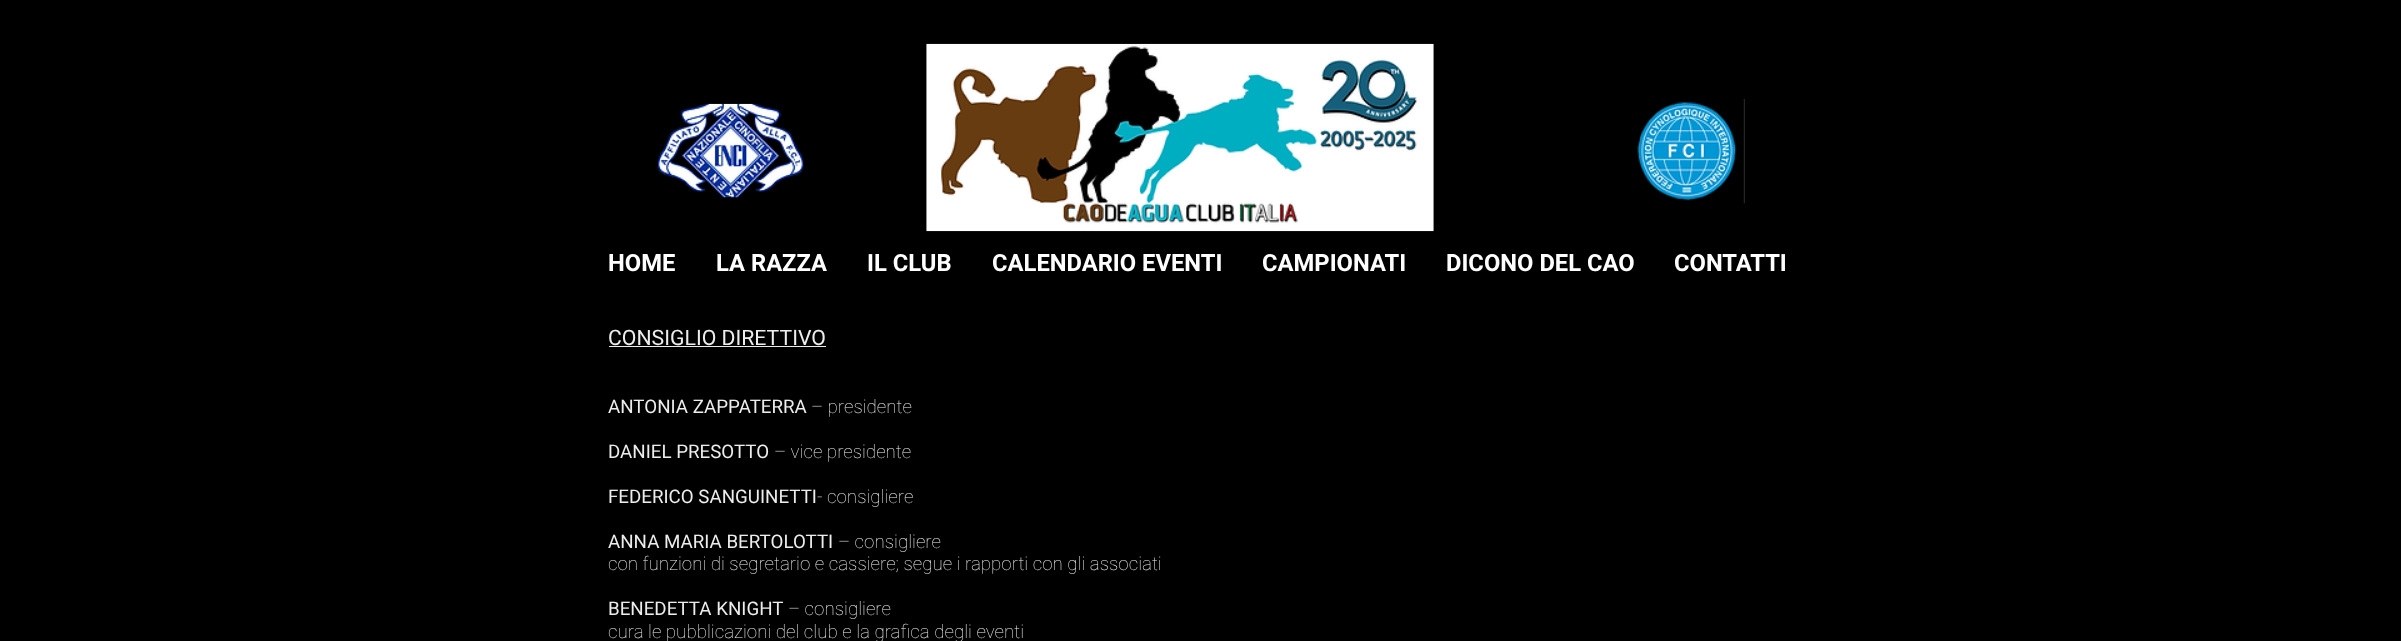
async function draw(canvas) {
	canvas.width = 2401;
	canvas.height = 641;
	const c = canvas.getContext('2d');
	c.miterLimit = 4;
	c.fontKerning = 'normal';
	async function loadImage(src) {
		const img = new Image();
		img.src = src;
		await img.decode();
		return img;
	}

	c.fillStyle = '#000';
	c.fillRect(0, 0, 2401, 641);
	c.drawImage(await loadImage('img1.png'), 657, 103, 147, 95);
	c.drawImage(await loadImage('img2.png'), 926, 43, 508, 189);
	c.drawImage(await loadImage('img3.png'), 1637, 99, 108, 105);
	c.font = 'bold 23.75px Roboto';
	c.fillStyle = '#fff';
	for (const [text, x, y] of [
		['HOME', 608, 271],
		['LA RAZZA', 716, 271],
		['IL CLUB', 867, 271],
		['CALENDARIO EVENTI', 992, 271],
		['CAMPIONATI', 1262, 271],
		['DICONO DEL CAO', 1446, 271],
		['CONTATTI', 1674, 271],
	]) {
		c.fillText(text, x, y);
	}
	c.font = '21.25px Roboto';
	c.fillStyle = '#ededed';
	c.fillText('CONSIGLIO DIRETTIVO', 608, 345);
	c.fillRect(609, 346, 217, 1);
	c.font = '18.75px Roboto';
	c.fillText('ANTONIA ZAPPATERRA', 608, 413);
	c.font = '100 18.75px Roboto';
	c.fillText('– presidente', 811, 413);
	c.font = '18.75px Roboto';
	c.fillText('DANIEL PRESOTTO', 608, 458);
	c.font = '100 18.75px Roboto';
	c.fillText('– vice presidente', 774, 458);
	c.font = '18.75px Roboto';
	c.fillText('FEDERICO SANGUINETTI', 608, 503);
	c.font = '100 18.75px Roboto';
	c.fillText('- consigliere', 817, 503);
	c.font = '18.75px Roboto';
	c.fillText('ANNA MARIA BERTOLOTTI', 608, 548);
	c.font = '100 18.75px Roboto';
	c.fillText('– consigliere', 838, 548);
	c.fillText('con funzioni di segretario e cassiere; segue i rapporti con gli associati', 608, 570);
	c.font = '18.75px Roboto';
	c.fillText('BENEDETTA KNIGHT', 608, 615);
	c.font = '100 18.75px Roboto';
	c.fillText('– consigliere', 788, 615);
	c.fillText('cura le pubblicazioni del club e la grafica degli eventi', 608, 638);
}

draw(document.querySelector('canvas'));
